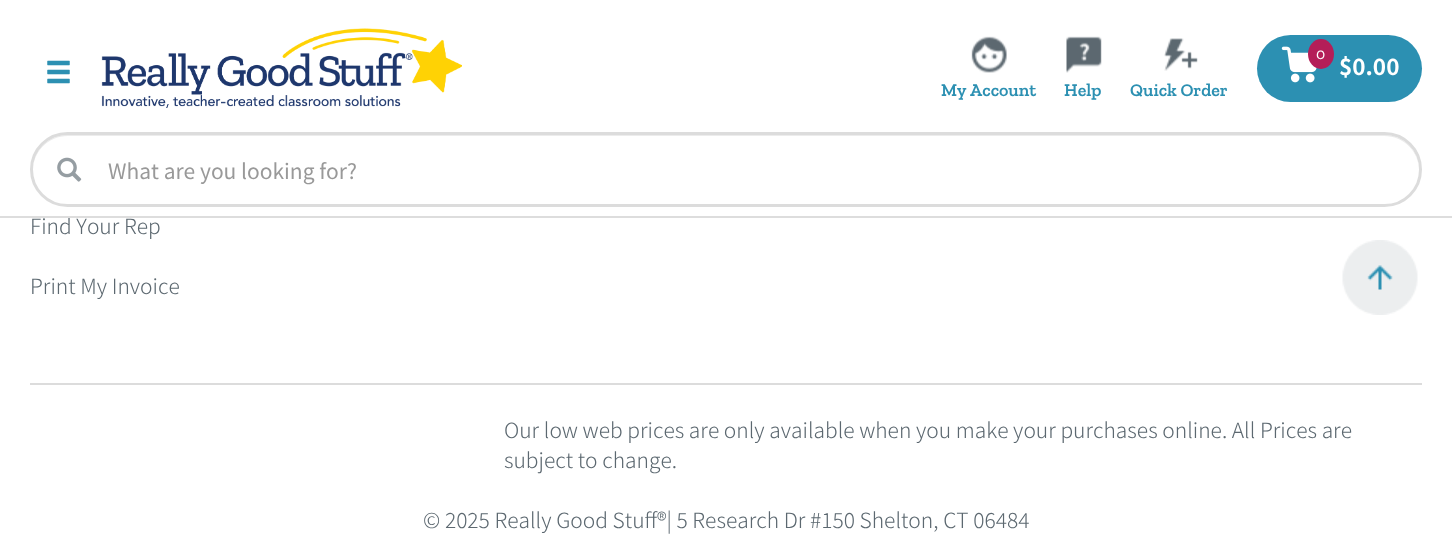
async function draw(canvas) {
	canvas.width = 1452;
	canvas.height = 553;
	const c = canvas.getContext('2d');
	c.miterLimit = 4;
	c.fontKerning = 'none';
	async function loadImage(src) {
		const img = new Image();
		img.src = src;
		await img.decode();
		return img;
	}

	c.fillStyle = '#fff';
	c.fillRect(0, 0, 1452, 553);
	c.font = '300 21px Noto Sans SC';
	c.fillStyle = '#5c6870';
	c.fillText('Find Your Rep', 30, 234);
	c.fillStyle = '#ddd';
	c.fillRect(0, 216, 1452, 2);
	c.drawImage(await loadImage('img1.png'), 47, 60, 23, 24);
	c.drawImage(await loadImage('img2.png'), 101, 28, 361, 80);
	c.fillStyle = '#2c90b2';
	c.beginPath();
	c.roundRect(1257, 35, 165, 67, 33.5);
	c.fill();
	c.drawImage(await loadImage('img3.png'), 1281, 46, 36, 37);
	c.fillStyle = '#b41e58';
	c.beginPath();
	c.ellipse(1321, 54, 13, 15, 0, 0, 2 * Math.PI);
	c.fill();
	c.font = '16px Zilla Slab';
	c.fillStyle = '#fff';
	c.fillText('0', 1316, 59);
	c.font = 'bold 22.5px Noto Sans SC';
	c.fillText('$0.00', 1339, 75);
	c.drawImage(await loadImage('img4.png'), 971, 36, 36, 37);
	c.font = '600 18px Zilla Slab';
	c.fillStyle = '#2c90b2';
	c.fillText('My Account', 941, 96);
	c.drawImage(await loadImage('img5.png'), 1066, 36, 36, 37);
	c.fillText('Help', 1064, 96);
	c.drawImage(await loadImage('img6.png'), 1164, 38, 34, 33);
	c.fillText('Quick Order', 1130, 96);
	c.fillStyle = '#ececec';
	c.beginPath();
	c.moveTo(68, 136);
	c.lineTo(1384, 136);
	c.bezierCurveTo(1404, 136, 1419, 152, 1419, 170);
	c.bezierCurveTo(1419, 150, 1404, 135, 1384, 135);
	c.lineTo(68, 135);
	c.bezierCurveTo(48, 135, 33, 150, 33, 170);
	c.bezierCurveTo(33, 152, 48, 136, 68, 136);
	c.closePath();
	c.fill();
	c.beginPath();
	c.roundRect(31.5, 133.5, 1389, 72, 36);
	c.strokeStyle = '#dcdcdc';
	c.lineWidth = 3;
	c.stroke();
	c.drawImage(await loadImage('img7.png'), 57, 157, 25, 25);
	c.font = '21px Noto Sans SC';
	c.fillStyle = '#999';
	c.fillText('What are you looking for?', 108, 179);
	c.drawImage(await loadImage('img8.png'), 1342, 240, 76, 75);
	c.font = '300 21px Noto Sans SC';
	c.fillStyle = '#5c6870';
	c.fillText('Print My Invoice', 30, 294);
	c.fillStyle = '#dcdcdc';
	c.fillRect(30, 383, 1392, 2);
	c.fillStyle = '#5c6870';
	for (const [text, x, y] of [
		['Our low web prices are only available when you make your purchases online. All Prices are', 504, 438],
		['subject to change.', 504, 468],
		['© 2025 Really Good Stuff®| 5 Research Dr #150 Shelton, CT 06484', 423, 528],
	]) {
		c.fillText(text, x, y);
	}
}

draw(document.querySelector('canvas'));
